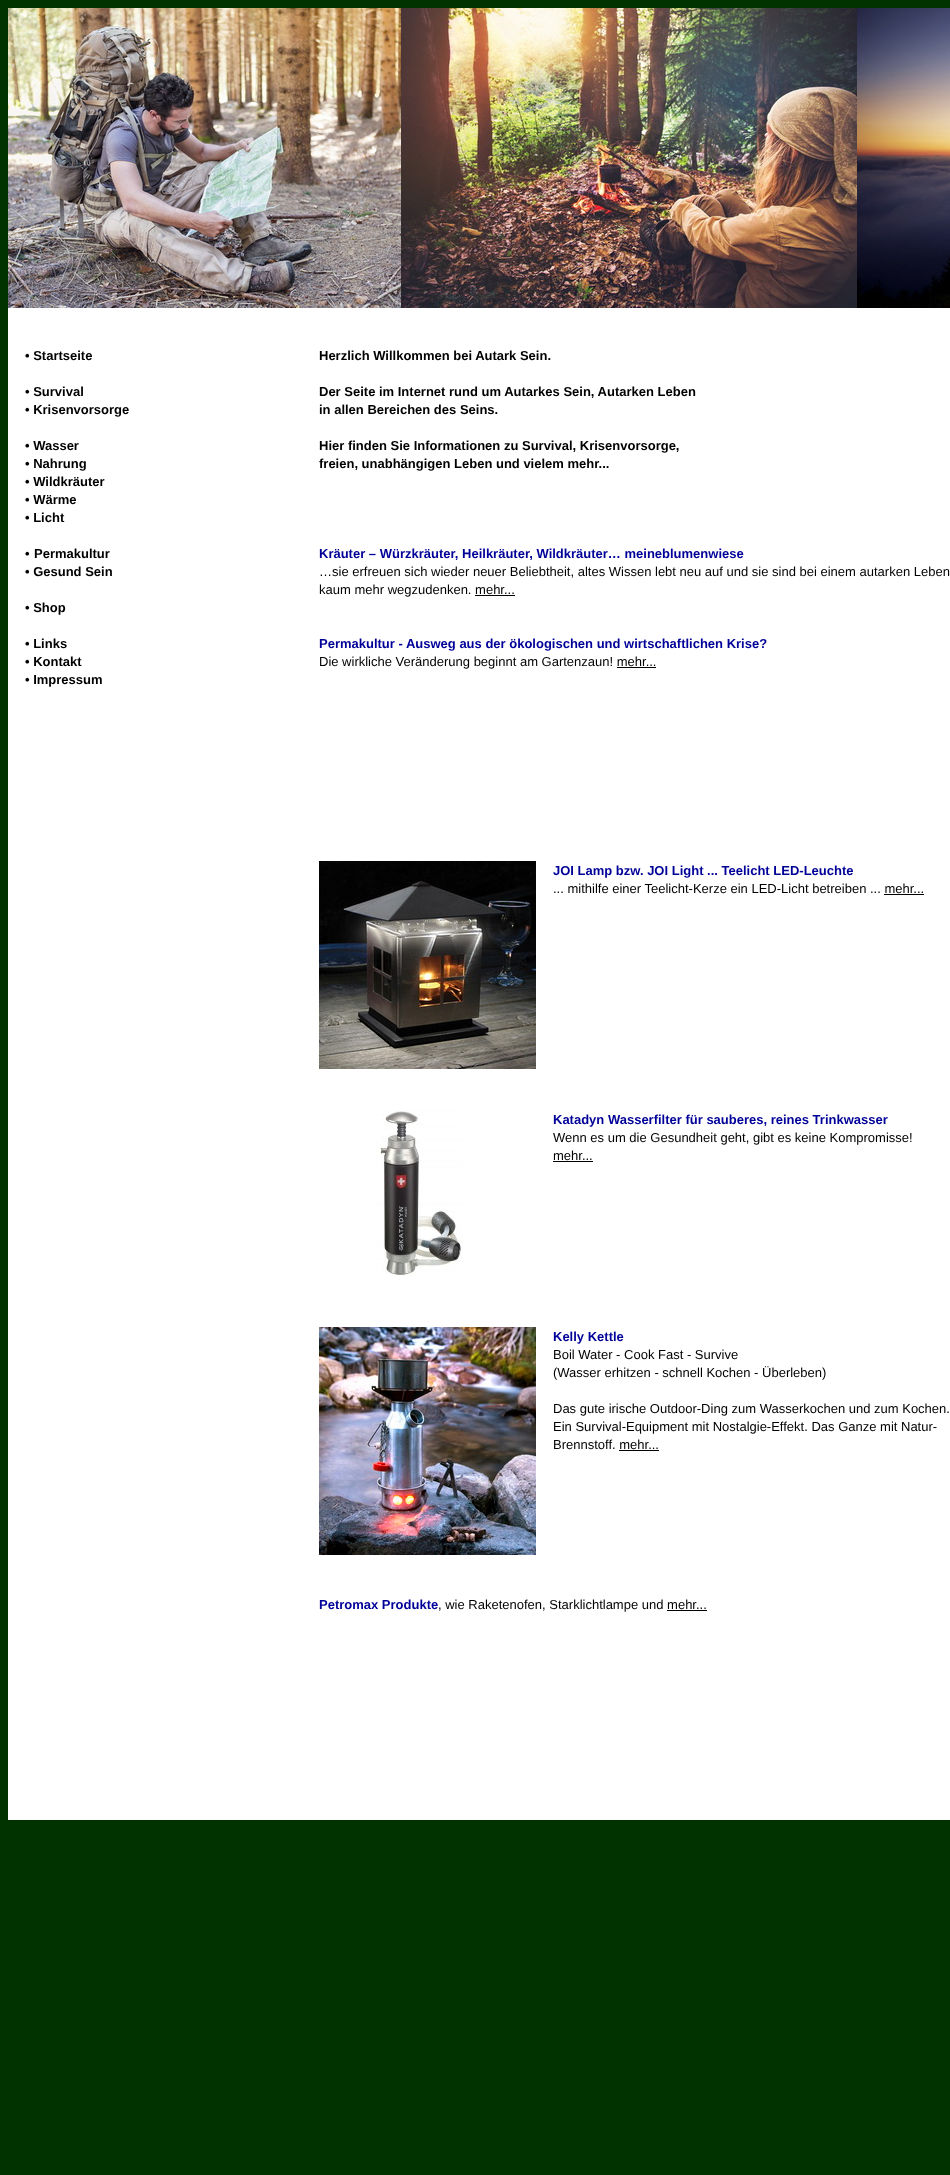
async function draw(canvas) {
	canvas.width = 950;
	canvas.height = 2175;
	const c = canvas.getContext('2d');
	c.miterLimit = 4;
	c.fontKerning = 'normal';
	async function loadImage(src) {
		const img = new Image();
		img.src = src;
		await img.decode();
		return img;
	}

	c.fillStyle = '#030';
	c.fillRect(0, 0, 950, 2175);
	c.fillStyle = '#fff';
	c.fillRect(8, 308, 942, 1512);
	c.drawImage(await loadImage('img1.png'), 8, 8, 393, 300);
	c.drawImage(await loadImage('img2.png'), 401, 8, 456, 300);
	c.drawImage(await loadImage('img3.png'), 857, 8, 93, 300);
	c.font = 'bold 13px Liberation Sans';
	c.fillStyle = '#000';
	for (const [text, x, y] of [
		['• Startseite', 25, 360],
		['• Survival', 25, 396],
		['• Krisenvorsorge', 25, 414],
		['• Wasser', 25, 450],
		['• Nahrung', 25, 468],
		['• Wildkräuter', 25, 486],
		['• Wärme', 25, 504],
		['• Licht', 25, 522],
		['•', 25, 558],
		['Permakultur', 34, 558],
		['• Gesund Sein', 25, 576],
		['• Shop', 25, 612],
		['• Links', 25, 648],
		['• Kontakt', 25, 666],
		['• Impressum', 25, 684],
		['Herzlich Willkommen bei Autark Sein.', 319, 360],
		['Der Seite im Internet rund um Autarkes Sein, Autarken Leben', 319, 396],
		['in allen Bereichen des Seins.', 319, 414],
		['Hier finden Sie Informationen zu Survival, Krisenvorsorge,', 319, 450],
		['freien, unabhängigen Leben und vielem mehr...', 319, 468],
	]) {
		c.fillText(text, x, y);
	}
	c.fillStyle = '#009';
	c.fillText('Kräuter – Würzkräuter, Heilkräuter, Wildkräuter… meineblumenwiese', 319, 558);
	c.font = '13px Liberation Sans';
	c.fillStyle = '#000';
	c.fillText('…sie erfreuen sich wieder neuer Beliebtheit, altes Wissen lebt neu auf und sie sind bei einem autarken Leben', 319, 576);
	c.fillText('kaum mehr wegzudenken. mehr...', 319, 594);
	c.fillRect(475, 595, 40, 1);
	c.font = 'bold 13px Liberation Sans';
	c.fillStyle = '#009';
	c.fillText('Permakultur - Ausweg aus der ökologischen und wirtschaftlichen Krise?', 319, 648);
	c.font = '13px Liberation Sans';
	c.fillStyle = '#000';
	c.fillText('Die wirkliche Veränderung beginnt am Gartenzaun! mehr...', 319, 666);
	c.fillRect(617, 667, 39, 1);
	c.drawImage(await loadImage('img4.png'), 319, 861, 217, 208);
	c.font = 'bold 13px Liberation Sans';
	c.fillStyle = '#009';
	c.fillText('JOI Lamp bzw. JOI Light ... Teelicht LED-Leuchte', 553, 875);
	c.font = '13px Liberation Sans';
	c.fillStyle = '#000';
	c.fillText('... mithilfe einer Teelicht-Kerze ein LED-Licht betreiben ... mehr...', 553, 893);
	c.fillRect(884, 894, 40, 1);
	c.drawImage(await loadImage('img5.png'), 375, 1110, 88, 167);
	c.font = 'bold 13px Liberation Sans';
	c.fillStyle = '#009';
	c.fillText('Katadyn Wasserfilter für sauberes, reines Trinkwasser', 553, 1124);
	c.font = '13px Liberation Sans';
	c.fillStyle = '#000';
	c.fillText('Wenn es um die Gesundheit geht, gibt es keine Kompromisse!', 553, 1142);
	c.fillText('mehr...', 553, 1160);
	c.fillRect(553, 1161, 40, 1);
	c.drawImage(await loadImage('img6.png'), 319, 1327, 217, 228);
	c.font = 'bold 13px Liberation Sans';
	c.fillStyle = '#009';
	c.fillText('Kelly Kettle', 553, 1341);
	c.font = '13px Liberation Sans';
	c.fillStyle = '#000';
	for (const [text, x, y] of [
		['Boil Water - Cook Fast - Survive', 553, 1359],
		['(Wasser erhitzen - schnell Kochen - Überleben)', 553, 1377],
		['Das gute irische Outdoor-Ding zum Wasserkochen und zum Kochen.', 553, 1413],
		['Ein Survival-Equipment mit Nostalgie-Effekt. Das Ganze mit Natur-', 553, 1431],
		['Brennstoff. mehr...', 553, 1449],
	]) {
		c.fillText(text, x, y);
	}
	c.fillRect(619, 1450, 40, 1);
	c.font = 'bold 13px Liberation Sans';
	c.fillStyle = '#009';
	c.fillText('Petromax Produkte', 319, 1609);
	c.font = '13px Liberation Sans';
	c.fillStyle = '#000';
	c.fillText(', wie Raketenofen, Starklichtlampe und mehr...', 438, 1609);
	c.fillRect(667, 1610, 40, 1);
}

draw(document.querySelector('canvas'));
